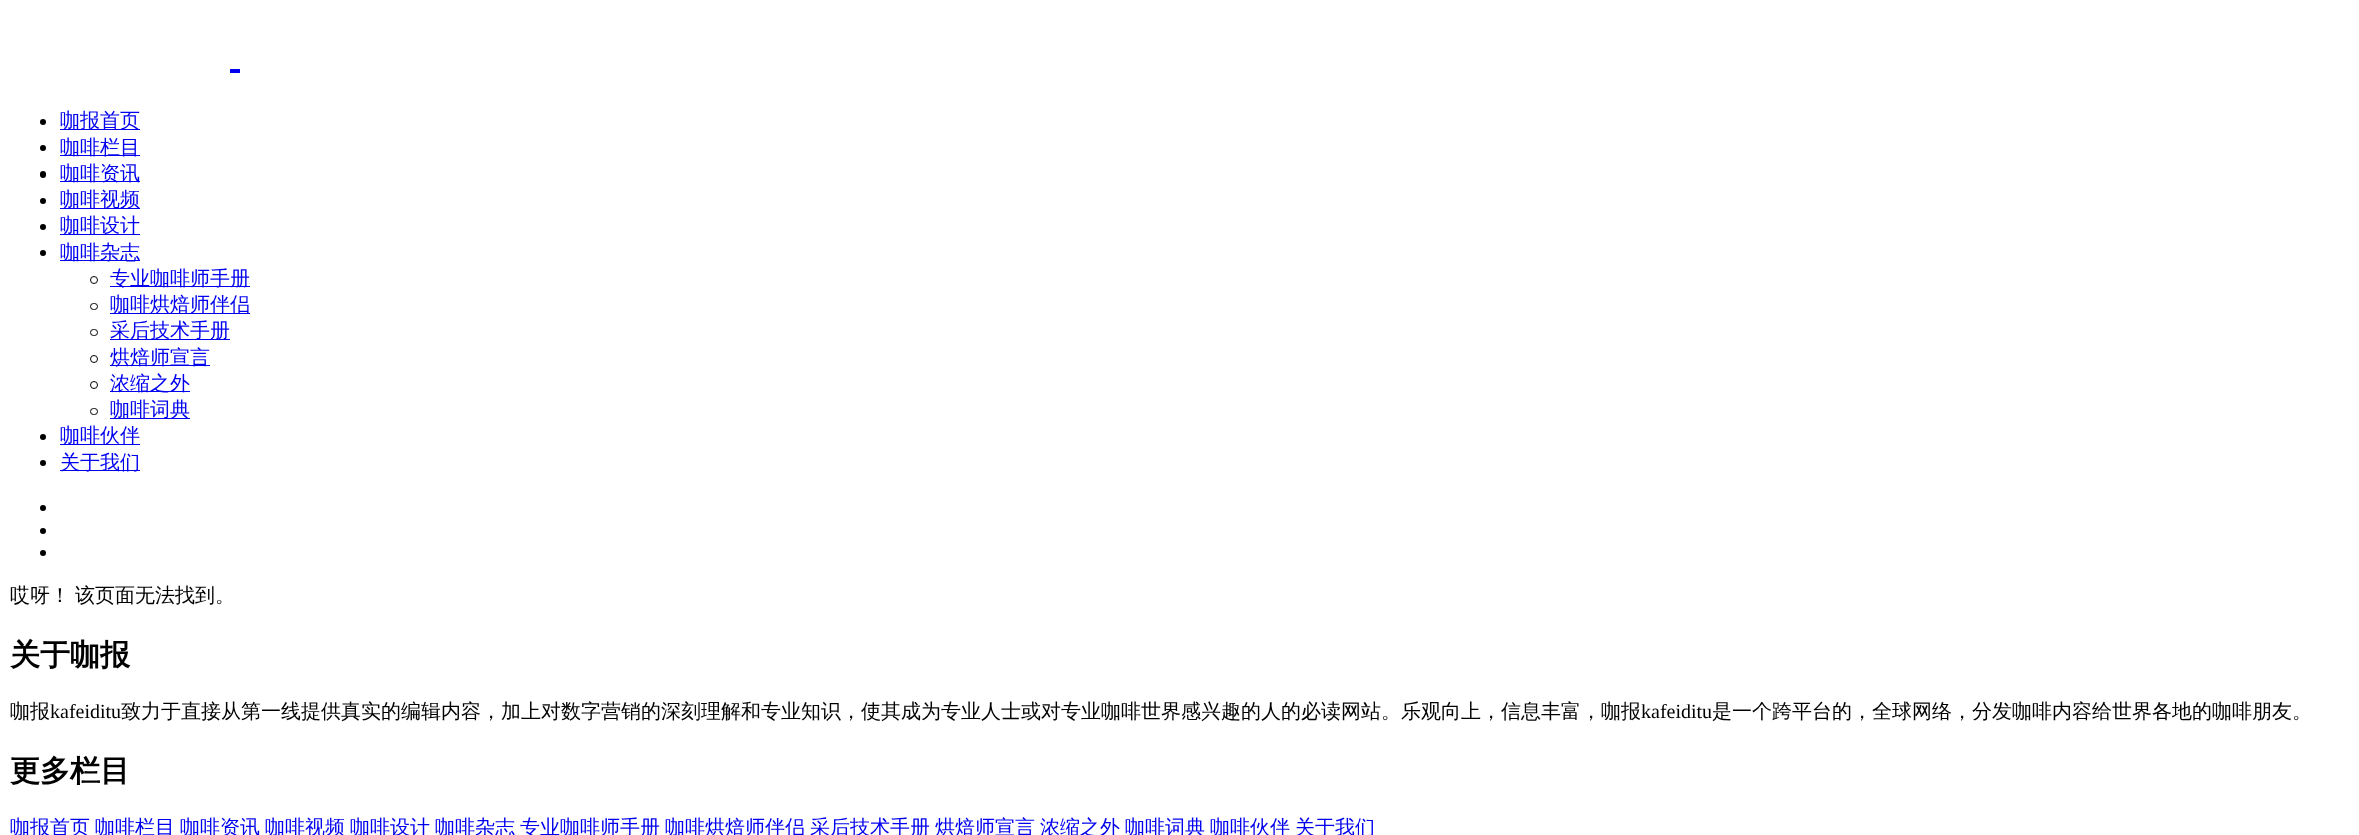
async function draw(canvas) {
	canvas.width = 2359;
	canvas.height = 835;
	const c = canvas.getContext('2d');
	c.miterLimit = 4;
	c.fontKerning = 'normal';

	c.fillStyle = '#fff';
	c.fillRect(0, 0, 2359, 835);
	c.fillStyle = '#00e';
	c.fillRect(230, 69, 10, 4);
	c.fillStyle = '#000';
	c.beginPath();
	c.arc(43, 122, 3, 0, 2 * Math.PI);
	c.fill();
	c.fillStyle = '#00e';
	c.fillRect(60, 129, 80, 1);
	c.font = '500 20px WenQuanYi Zen Hei';
	c.fillText('咖报首页', 60, 127);
	c.fillStyle = '#000';
	c.beginPath();
	c.arc(43, 148, 3, 0, 2 * Math.PI);
	c.fill();
	c.fillStyle = '#00e';
	c.fillRect(60, 155, 80, 1);
	c.fillText('咖啡栏目', 60, 154);
	c.fillStyle = '#000';
	c.beginPath();
	c.roundRect(40, 171, 6, 7, 3);
	c.fill();
	c.fillStyle = '#00e';
	c.fillRect(60, 181, 80, 1);
	c.fillText('咖啡资讯', 60, 180);
	c.fillStyle = '#000';
	c.beginPath();
	c.arc(43, 201, 3, 0, 2 * Math.PI);
	c.fill();
	c.fillStyle = '#00e';
	c.fillRect(60, 208, 80, 1);
	c.fillText('咖啡视频', 60, 206);
	c.fillStyle = '#000';
	c.beginPath();
	c.arc(43, 227, 3, 0, 2 * Math.PI);
	c.fill();
	c.fillStyle = '#00e';
	c.fillRect(60, 234, 80, 1);
	c.fillText('咖啡设计', 60, 232);
	c.fillStyle = '#000';
	c.beginPath();
	c.arc(43, 253, 3, 0, 2 * Math.PI);
	c.fill();
	c.fillStyle = '#00e';
	c.fillRect(60, 260, 80, 1);
	c.fillText('咖啡杂志', 60, 259);
	c.beginPath();
	c.arc(94, 280, 3.5, 0, 2 * Math.PI);
	c.strokeStyle = '#000';
	c.stroke();
	c.fillRect(110, 286, 140, 1);
	c.fillText('专业咖啡师手册', 110, 285);
	c.beginPath();
	c.roundRect(90.5, 303.5, 7, 6, 3);
	c.stroke();
	c.fillRect(110, 313, 140, 1);
	c.fillText('咖啡烘焙师伴侣', 110, 311);
	c.beginPath();
	c.roundRect(90.5, 329.5, 7, 6, 3);
	c.stroke();
	c.fillRect(110, 339, 120, 1);
	c.fillText('采后技术手册', 110, 337);
	c.beginPath();
	c.arc(94, 359, 3.5, 0, 2 * Math.PI);
	c.stroke();
	c.fillRect(110, 365, 100, 1);
	c.fillText('烘焙师宣言', 110, 364);
	c.beginPath();
	c.arc(94, 385, 3.5, 0, 2 * Math.PI);
	c.stroke();
	c.fillRect(110, 391, 80, 1);
	c.fillText('浓缩之外', 110, 390);
	c.beginPath();
	c.roundRect(90.5, 408.5, 7, 6, 3);
	c.stroke();
	c.fillRect(110, 418, 80, 1);
	c.fillText('咖啡词典', 110, 416);
	c.fillStyle = '#000';
	c.beginPath();
	c.arc(43, 437, 3, 0, 2 * Math.PI);
	c.fill();
	c.fillStyle = '#00e';
	c.fillRect(60, 444, 80, 1);
	c.fillText('咖啡伙伴', 60, 442);
	c.fillStyle = '#000';
	c.beginPath();
	c.arc(43, 463, 3, 0, 2 * Math.PI);
	c.fill();
	c.fillStyle = '#00e';
	c.fillRect(60, 470, 80, 1);
	c.fillText('关于我们', 60, 469);
	c.fillStyle = '#000';
	c.beginPath();
	c.arc(43, 508, 3, 0, 2 * Math.PI);
	c.fill();
	c.beginPath();
	c.arc(43, 531, 3, 0, 2 * Math.PI);
	c.fill();
	c.beginPath();
	c.arc(43, 553, 3, 0, 2 * Math.PI);
	c.fill();
	c.wordSpacing = '-1px';
	c.fillText('哎呀！ 该页面无法找到。', 10, 602);
	c.wordSpacing = '0px';
	c.font = 'bold 30px WenQuanYi Zen Hei';
	c.fillText('关于咖报', 10, 665);
	c.font = '500 20px WenQuanYi Zen Hei';
	c.fillText('咖报', 10, 718);
	c.font = '20px Liberation Serif';
	c.fillText('kafeiditu', 50, 718);
	c.font = '500 20px WenQuanYi Zen Hei';
	c.fillText('致力于直接从第一线提供真实的编辑内容，加上对数字营销的深刻理解和专业知识，使其成为专业人士或对专业咖啡世界感兴趣的人的必读网站。乐观向上，信息丰富，咖报', 121, 718);
	c.font = '20px Liberation Serif';
	c.fillText('kafeiditu', 1641, 718);
	c.font = '500 20px WenQuanYi Zen Hei';
	c.fillText('是一个跨平台的，全球网络，分发咖啡内容给世界各地的咖啡朋友。', 1712, 718);
	c.font = 'bold 30px WenQuanYi Zen Hei';
	c.fillText('更多栏目', 10, 781);
	c.font = '500 20px WenQuanYi Zen Hei';
	c.fillStyle = '#00e';
	for (const [text, x, y] of [
		['咖报首页', 10, 834],
		['咖啡栏目', 95, 834],
		['咖啡资讯', 180, 834],
		['咖啡视频', 265, 834],
		['咖啡设计', 350, 834],
		['咖啡杂志', 435, 834],
		['专业咖啡师手册', 520, 834],
		['咖啡烘焙师伴侣', 665, 834],
		['采后技术手册', 810, 834],
		['烘焙师宣言', 935, 834],
		['浓缩之外', 1040, 834],
		['咖啡词典', 1125, 834],
		['咖啡伙伴', 1210, 834],
		['关于我们', 1295, 834],
	]) {
		c.fillText(text, x, y);
	}
}

draw(document.querySelector('canvas'));
